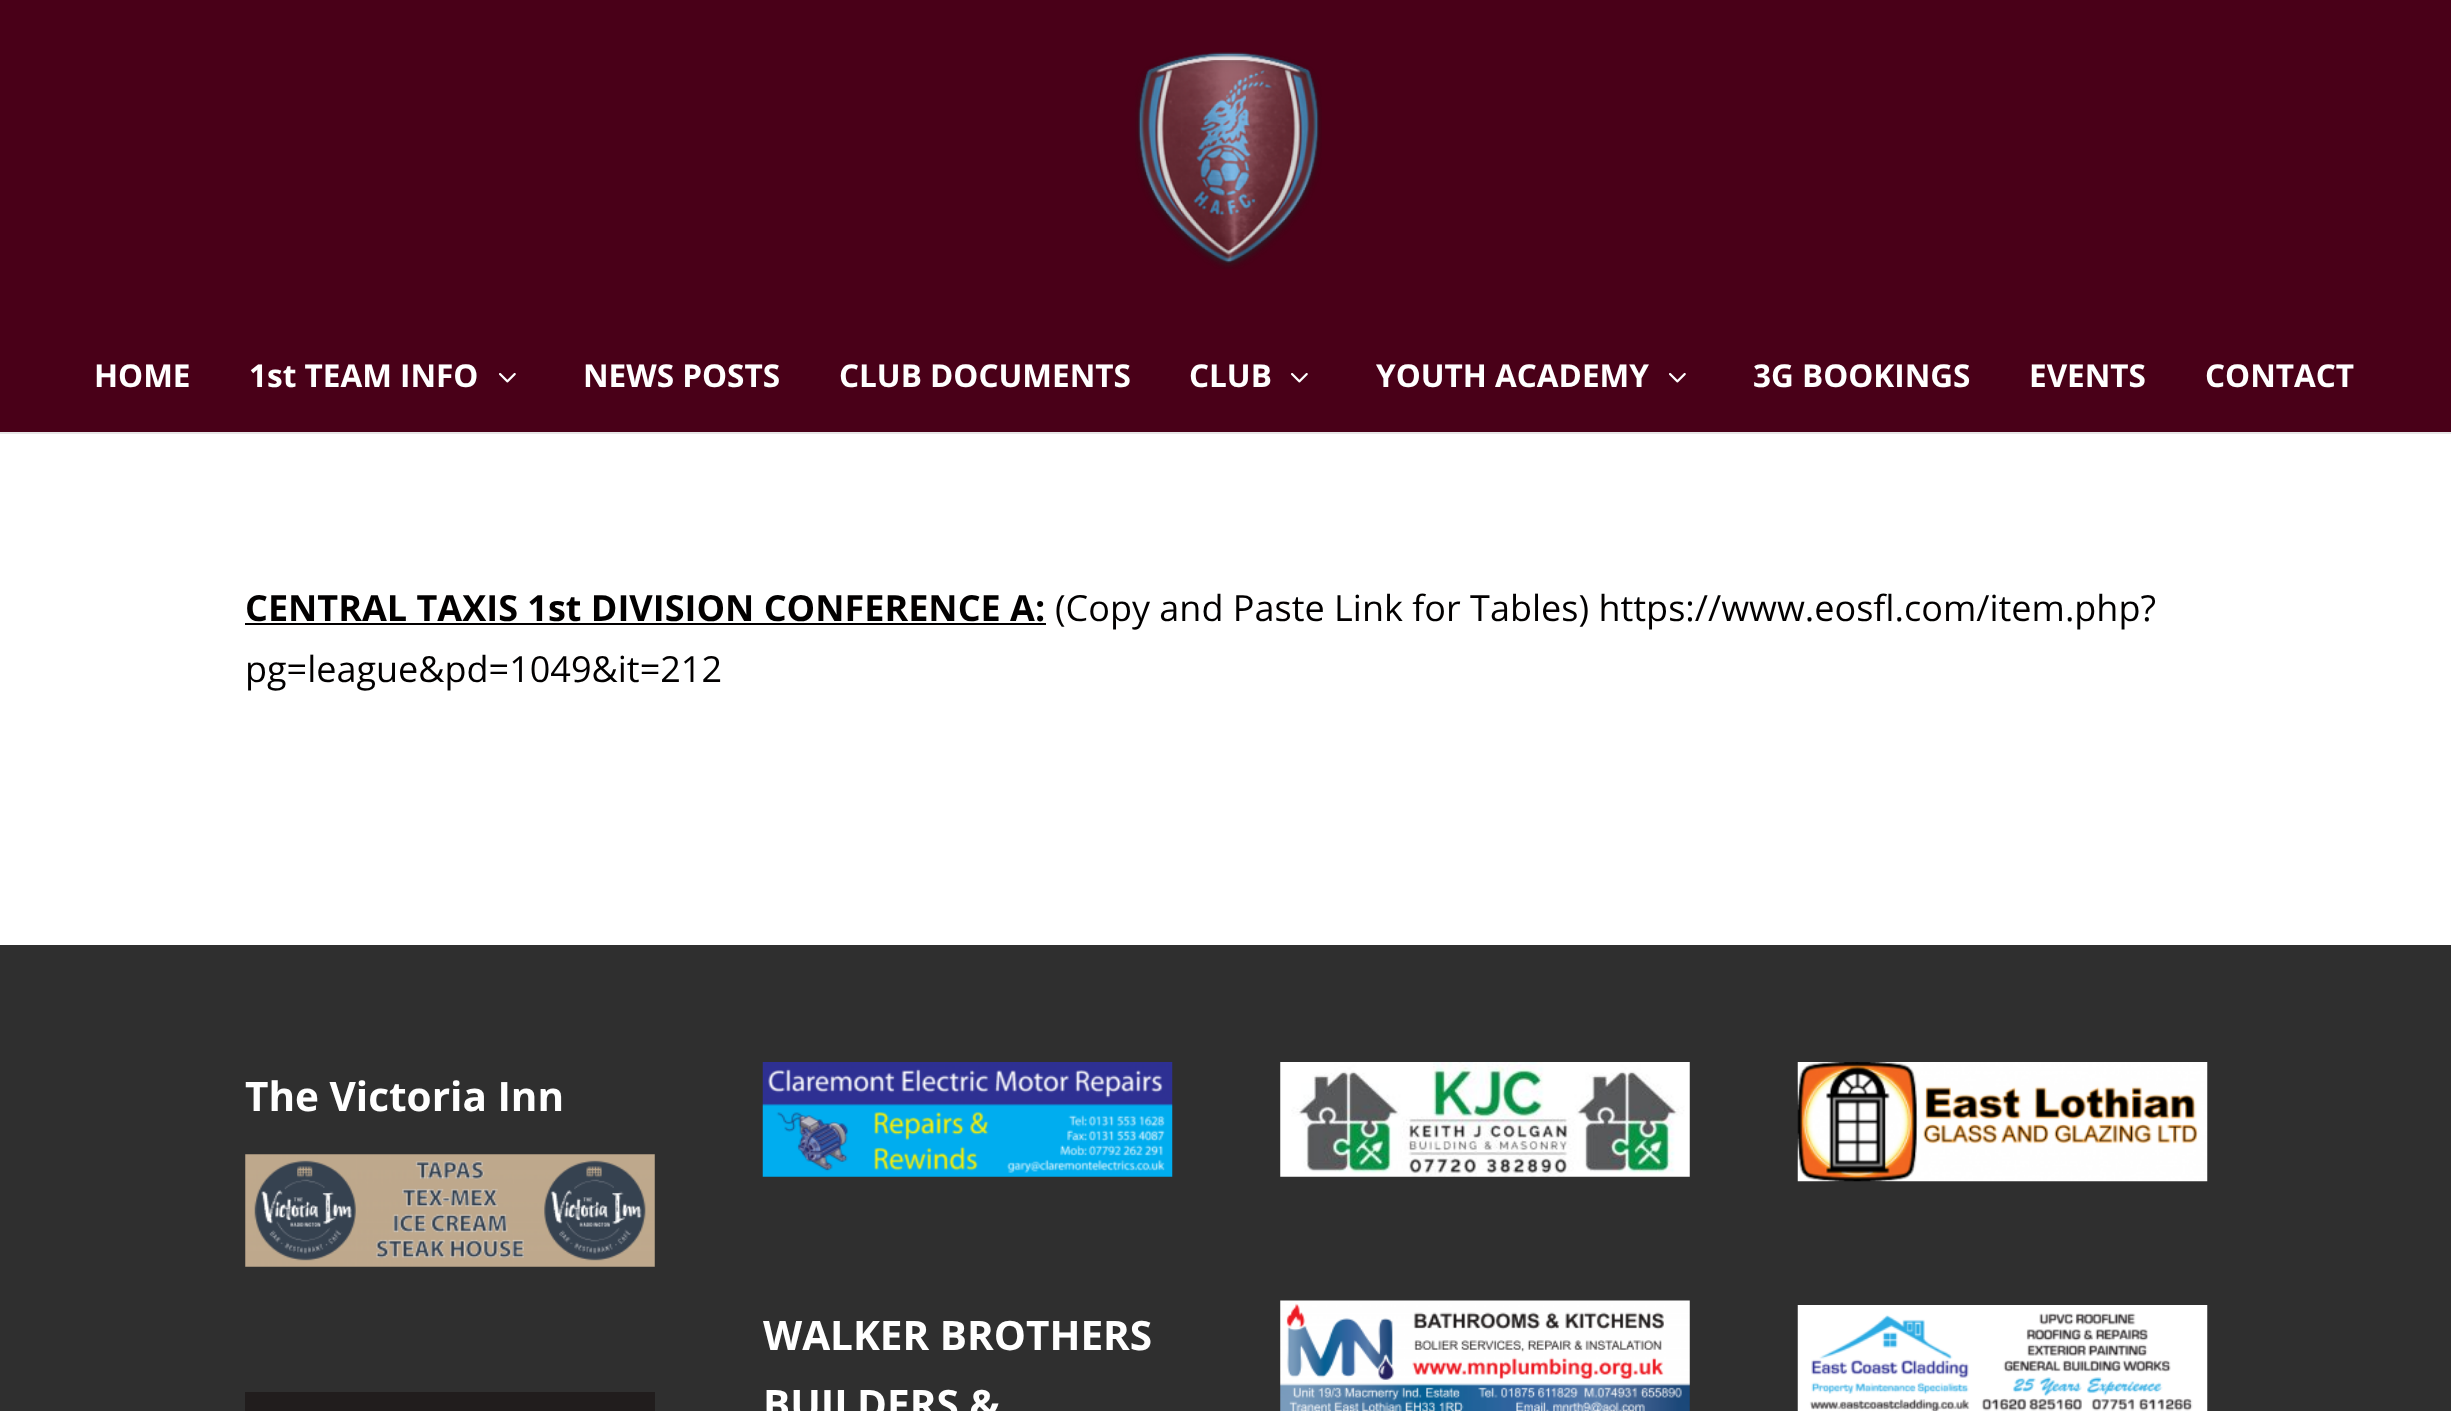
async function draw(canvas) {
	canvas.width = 2451;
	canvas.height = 1411;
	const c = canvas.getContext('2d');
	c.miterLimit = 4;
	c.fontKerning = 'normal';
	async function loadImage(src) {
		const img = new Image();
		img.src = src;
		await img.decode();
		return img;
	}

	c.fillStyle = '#fff';
	c.fillRect(0, 0, 2451, 1411);
	c.fillStyle = '#e6e6e6';
	c.beginPath();
	c.moveTo(0, 432);
	c.lineTo(0, 434);
	c.lineTo(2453, 434);
	c.lineTo(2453, 2);
	c.lineTo(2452, 2);
	c.lineTo(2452, 432);
	c.closePath();
	c.fill();
	c.fillStyle = '#490018';
	c.fillRect(0, 0, 2451, 432);
	c.drawImage(await loadImage('img1.png'), 1135, 52, 187, 217);
	c.font = 'bold 31.5px Open Sans';
	c.fillStyle = '#fff';
	c.fillText('HOME', 94, 387);
	c.fillText('1st TEAM INFO', 249, 387);
	c.drawImage(await loadImage('img2.png'), 499, 373, 17, 10);
	for (const [text, x, y] of [
		['NEWS POSTS', 583, 387],
		['CLUB DOCUMENTS', 839, 387],
		['CLUB', 1189, 387],
	]) {
		c.fillText(text, x, y);
	}
	c.drawImage(await loadImage('img2.png'), 1291, 373, 17, 10);
	c.fillText('YOUTH ACADEMY', 1376, 387);
	c.drawImage(await loadImage('img2.png'), 1669, 373, 17, 10);
	for (const [text, x, y] of [
		['3G BOOKINGS', 1753, 387],
		['EVENTS', 2029, 387],
		['CONTACT', 2205, 387],
	]) {
		c.fillText(text, x, y);
	}
	c.font = 'bold 36px Open Sans';
	c.fillStyle = '#020000';
	c.fillText('CENTRAL TAXIS 1st DIVISION CONFERENCE A:', 245, 621);
	c.fillRect(245, 623, 801, 2);
	c.font = '36px Open Sans';
	c.fillText('(Copy and Paste Link for Tables) https://www.eosfl.com/item.php?', 1055, 621);
	c.fillText('pg=league&pd=1049&it=212', 245, 682);
	c.fillStyle = '#2f2f2f';
	c.fillRect(0, 945, 2451, 466);
	c.font = 'bold 40.5px Open Sans';
	c.fillStyle = '#fff';
	c.fillText('The Victoria Inn', 245, 1111);
	c.drawImage(await loadImage('img3.png'), 245, 1154, 410, 113);
	c.fillStyle = '#211d1d';
	c.fillRect(245, 1392, 410, 19);
	c.drawImage(await loadImage('img4.png'), 1280, 1062, 410, 115);
	c.drawImage(await loadImage('img5.png'), 1280, 1300, 410, 111);
	c.drawImage(await loadImage('img6.png'), 1797, 1062, 411, 120);
	c.drawImage(await loadImage('img7.png'), 1797, 1305, 411, 106);
	c.drawImage(await loadImage('img8.png'), 762, 1062, 411, 115);
	c.fillStyle = '#fff';
	c.fillText('WALKER BROTHERS', 763, 1350);
	c.fillText('BUILDERS &', 763, 1419);
}

draw(document.querySelector('canvas'));
